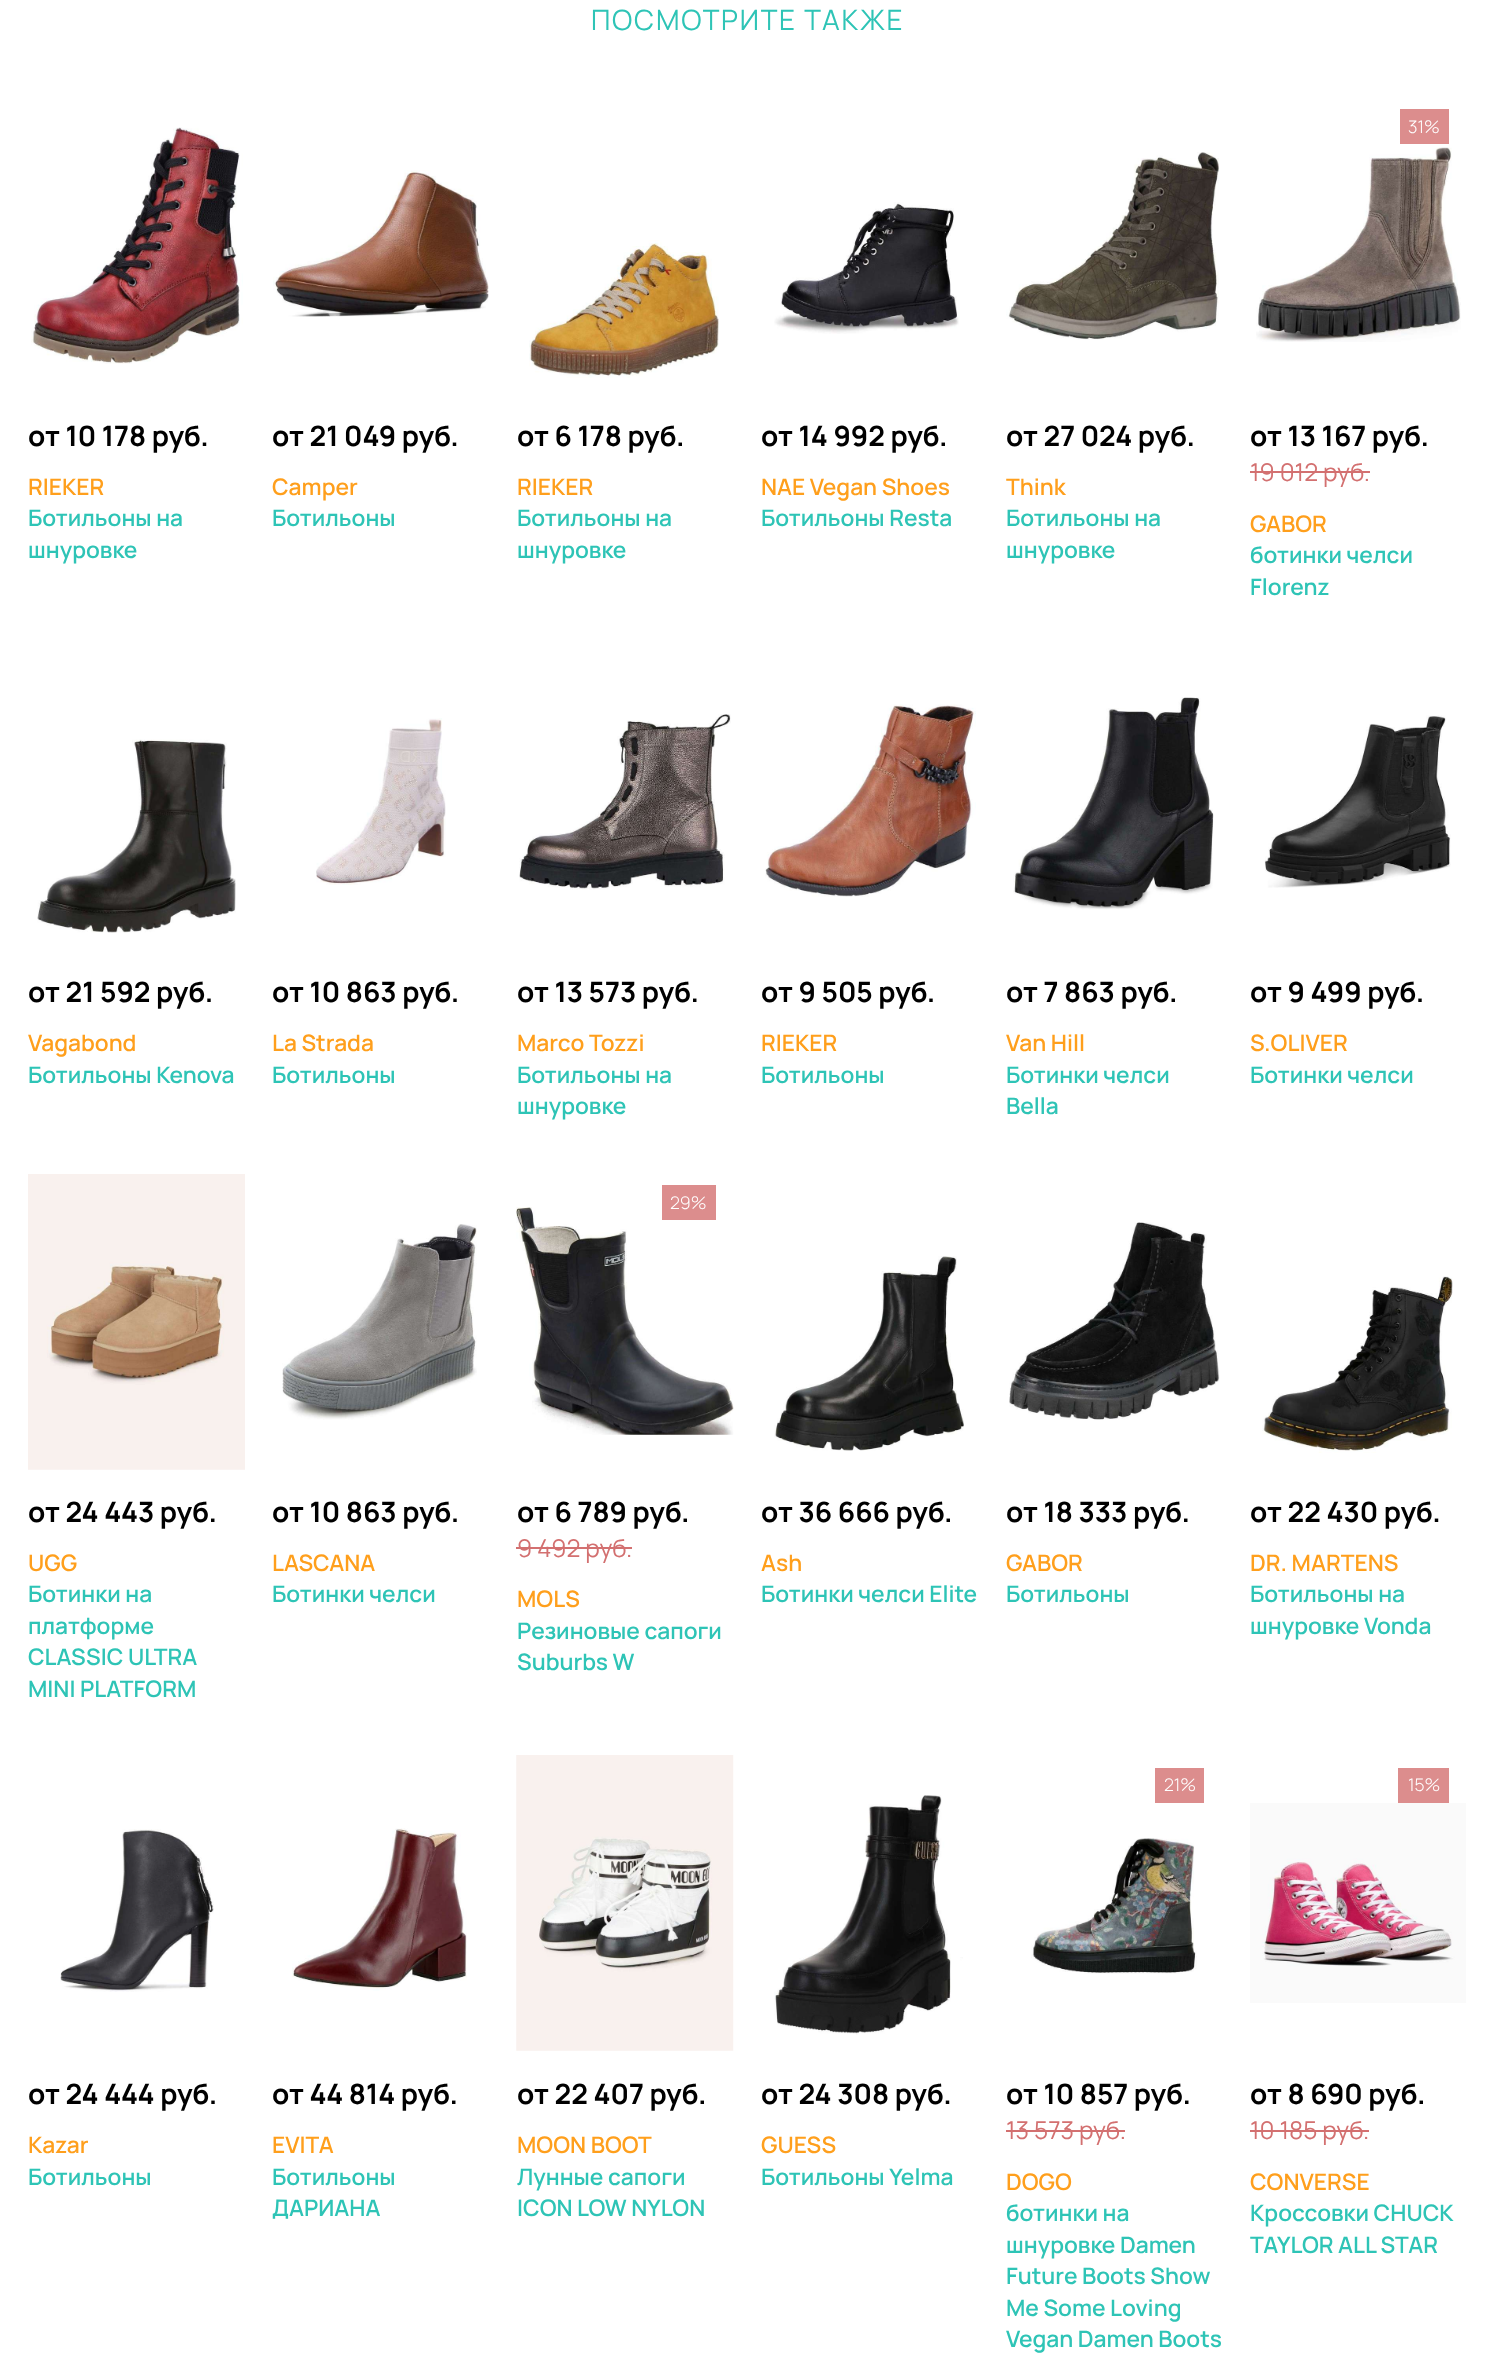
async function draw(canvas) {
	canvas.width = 1493;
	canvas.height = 2355;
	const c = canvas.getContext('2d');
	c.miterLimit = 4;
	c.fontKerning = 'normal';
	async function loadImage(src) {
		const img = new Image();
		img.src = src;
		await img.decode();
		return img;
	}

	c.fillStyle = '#fff';
	c.fillRect(0, 0, 1493, 2355);
	c.letterSpacing = '1.75px';
	c.font = '28px Manrope';
	c.fillStyle = '#2ec4b6';
	c.fillText('ПОСМОТРИТЕ ТАКЖЕ', 591, 30);
	c.drawImage(await loadImage('img1.png'), 31, 127, 212, 237);
	c.letterSpacing = '0px';
	c.font = 'bold 28px Manrope';
	c.fillStyle = '#000';
	c.fillText('от 10 178 руб.', 28, 446);
	c.font = '600 22.75px Manrope';
	c.fillStyle = '#ff9f1c';
	c.fillText('RIEKER', 28, 495);
	c.fillStyle = '#2ec4b6';
	c.fillText('Ботильоны на', 28, 526);
	c.fillText('шнуровке', 28, 558);
	c.drawImage(await loadImage('img2.png'), 273, 170, 216, 147);
	c.font = 'bold 28px Manrope';
	c.fillStyle = '#000';
	c.fillText('от 21 049 руб.', 272, 446);
	c.font = '600 22.75px Manrope';
	c.fillStyle = '#ff9f1c';
	c.fillText('Camper', 272, 495);
	c.fillStyle = '#2ec4b6';
	c.fillText('Ботильоны', 272, 526);
	c.drawImage(await loadImage('img3.png'), 529, 240, 190, 138);
	c.font = 'bold 28px Manrope';
	c.fillStyle = '#000';
	c.fillText('от 6 178 руб.', 517, 446);
	c.font = '600 22.75px Manrope';
	c.fillStyle = '#ff9f1c';
	c.fillText('RIEKER', 517, 495);
	c.fillStyle = '#2ec4b6';
	c.fillText('Ботильоны на', 517, 526);
	c.fillText('шнуровке', 517, 558);
	c.drawImage(await loadImage('img4.png'), 774, 202, 185, 132);
	c.font = 'bold 28px Manrope';
	c.fillStyle = '#000';
	c.fillText('от 14 992 руб.', 761, 446);
	c.font = '600 22.75px Manrope';
	c.fillStyle = '#ff9f1c';
	c.fillText('NAE Vegan Shoes', 761, 495);
	c.fillStyle = '#2ec4b6';
	c.fillText('Ботильоны Resta', 761, 526);
	c.drawImage(await loadImage('img5.png'), 1006, 152, 213, 188);
	c.font = 'bold 28px Manrope';
	c.fillStyle = '#000';
	c.fillText('от 27 024 руб.', 1006, 446);
	c.font = '600 22.75px Manrope';
	c.fillStyle = '#ff9f1c';
	c.fillText('Think', 1006, 495);
	c.fillStyle = '#2ec4b6';
	c.fillText('Ботильоны на', 1006, 526);
	c.fillText('шнуровке', 1006, 558);
	c.fillStyle = '#dc8d8d';
	c.fillRect(1400, 109, 49, 35);
	c.font = '300 17.5px Manrope';
	c.fillStyle = '#fff';
	c.fillText('31%', 1408, 133);
	c.drawImage(await loadImage('img6.png'), 1256, 147, 205, 195);
	c.font = 'bold 28px Manrope';
	c.fillStyle = '#000';
	c.fillText('от 13 167 руб.', 1250, 446);
	c.font = '24.5px Manrope';
	c.fillStyle = '#d37070';
	c.fillText('19 012 руб.', 1250, 481);
	c.fillRect(1250, 471, 120, 2);
	c.font = '600 22.75px Manrope';
	c.fillStyle = '#ff9f1c';
	c.fillText('GABOR', 1250, 532);
	c.fillStyle = '#2ec4b6';
	c.fillText('ботинки челси', 1250, 563);
	c.fillText('Florenz', 1250, 595);
	c.drawImage(await loadImage('img7.png'), 37, 739, 199, 194);
	c.font = 'bold 28px Manrope';
	c.fillStyle = '#000';
	c.fillText('от 21 592 руб.', 28, 1002);
	c.font = '600 22.75px Manrope';
	c.fillStyle = '#ff9f1c';
	c.fillText('Vagabond', 28, 1051);
	c.fillStyle = '#2ec4b6';
	c.fillText('Ботильоны Kenova', 28, 1083);
	c.drawImage(await loadImage('img8.png'), 316, 718, 130, 167);
	c.font = 'bold 28px Manrope';
	c.fillStyle = '#000';
	c.fillText('от 10 863 руб.', 272, 1002);
	c.font = '600 22.75px Manrope';
	c.fillStyle = '#ff9f1c';
	c.fillText('La Strada', 272, 1051);
	c.fillStyle = '#2ec4b6';
	c.fillText('Ботильоны', 272, 1083);
	c.drawImage(await loadImage('img9.png'), 519, 714, 212, 176);
	c.font = 'bold 28px Manrope';
	c.fillStyle = '#000';
	c.fillText('от 13 573 руб.', 517, 1002);
	c.font = '600 22.75px Manrope';
	c.fillStyle = '#ff9f1c';
	c.fillText('Marco Tozzi', 517, 1051);
	c.fillStyle = '#2ec4b6';
	c.fillText('Ботильоны на', 517, 1083);
	c.fillText('шнуровке', 517, 1114);
	c.drawImage(await loadImage('img10.png'), 765, 704, 211, 193);
	c.font = 'bold 28px Manrope';
	c.fillStyle = '#000';
	c.fillText('от 9 505 руб.', 761, 1002);
	c.font = '600 22.75px Manrope';
	c.fillStyle = '#ff9f1c';
	c.fillText('RIEKER', 761, 1051);
	c.fillStyle = '#2ec4b6';
	c.fillText('Ботильоны', 761, 1083);
	c.drawImage(await loadImage('img11.png'), 1013, 697, 201, 213);
	c.font = 'bold 28px Manrope';
	c.fillStyle = '#000';
	c.fillText('от 7 863 руб.', 1006, 1002);
	c.font = '600 22.75px Manrope';
	c.fillStyle = '#ff9f1c';
	c.fillText('Van Hill', 1006, 1051);
	c.fillStyle = '#2ec4b6';
	c.fillText('Ботинки челси', 1006, 1083);
	c.fillText('Bella', 1006, 1114);
	c.drawImage(await loadImage('img12.png'), 1264, 715, 187, 173);
	c.font = 'bold 28px Manrope';
	c.fillStyle = '#000';
	c.fillText('от 9 499 руб.', 1250, 1002);
	c.font = '600 22.75px Manrope';
	c.fillStyle = '#ff9f1c';
	c.fillText('S.OLIVER', 1250, 1051);
	c.fillStyle = '#2ec4b6';
	c.fillText('Ботинки челси', 1250, 1083);
	c.drawImage(await loadImage('img13.png'), 28, 1174, 217, 296);
	c.font = 'bold 28px Manrope';
	c.fillStyle = '#000';
	c.fillText('от 24 443 руб.', 28, 1522);
	c.font = '600 22.75px Manrope';
	c.fillStyle = '#ff9f1c';
	c.fillText('UGG', 28, 1571);
	c.fillStyle = '#2ec4b6';
	for (const [text, x, y] of [
		['Ботинки на', 28, 1602],
		['платформе', 28, 1634],
		['CLASSIC ULTRA', 28, 1665],
		['MINI PLATFORM', 28, 1697],
	]) {
		c.fillText(text, x, y);
	}
	c.drawImage(await loadImage('img14.png'), 282, 1224, 195, 196);
	c.font = 'bold 28px Manrope';
	c.fillStyle = '#000';
	c.fillText('от 10 863 руб.', 272, 1522);
	c.font = '600 22.75px Manrope';
	c.fillStyle = '#ff9f1c';
	c.fillText('LASCANA', 272, 1571);
	c.fillStyle = '#2ec4b6';
	c.fillText('Ботинки челси', 272, 1602);
	c.drawImage(await loadImage('img15.png'), 516, 1207, 218, 228);
	c.fillStyle = '#dc8d8d';
	c.fillRect(662, 1185, 54, 35);
	c.font = '300 17.5px Manrope';
	c.fillStyle = '#fff';
	c.fillText('29%', 670, 1209);
	c.font = 'bold 28px Manrope';
	c.fillStyle = '#000';
	c.fillText('от 6 789 руб.', 517, 1522);
	c.font = '24.5px Manrope';
	c.fillStyle = '#d37070';
	c.fillText('9 492 руб.', 517, 1557);
	c.fillRect(516, 1547, 116, 2);
	c.font = '600 22.75px Manrope';
	c.fillStyle = '#ff9f1c';
	c.fillText('MOLS', 517, 1607);
	c.fillStyle = '#2ec4b6';
	c.fillText('Резиновые сапоги', 517, 1639);
	c.fillText('Suburbs W', 517, 1670);
	c.drawImage(await loadImage('img16.png'), 774, 1256, 190, 195);
	c.font = 'bold 28px Manrope';
	c.fillStyle = '#000';
	c.fillText('от 36 666 руб.', 761, 1522);
	c.font = '600 22.75px Manrope';
	c.fillStyle = '#ff9f1c';
	c.fillText('Ash', 761, 1571);
	c.fillStyle = '#2ec4b6';
	c.fillText('Ботинки челси Elite', 761, 1602);
	c.drawImage(await loadImage('img17.png'), 1009, 1222, 211, 198);
	c.font = 'bold 28px Manrope';
	c.fillStyle = '#000';
	c.fillText('от 18 333 руб.', 1006, 1522);
	c.font = '600 22.75px Manrope';
	c.fillStyle = '#ff9f1c';
	c.fillText('GABOR', 1006, 1571);
	c.fillStyle = '#2ec4b6';
	c.fillText('Ботильоны', 1006, 1602);
	c.drawImage(await loadImage('img18.png'), 1262, 1276, 191, 177);
	c.font = 'bold 28px Manrope';
	c.fillStyle = '#000';
	c.fillText('от 22 430 руб.', 1250, 1522);
	c.font = '600 22.75px Manrope';
	c.fillStyle = '#ff9f1c';
	c.fillText('DR. MARTENS', 1250, 1571);
	c.fillStyle = '#2ec4b6';
	c.fillText('Ботильоны на', 1250, 1602);
	c.fillText('шнуровке Vonda', 1250, 1634);
	c.drawImage(await loadImage('img19.png'), 60, 1829, 154, 163);
	c.font = 'bold 28px Manrope';
	c.fillStyle = '#000';
	c.fillText('от 24 444 руб.', 28, 2104);
	c.font = '600 22.75px Manrope';
	c.fillStyle = '#ff9f1c';
	c.fillText('Kazar', 28, 2153);
	c.fillStyle = '#2ec4b6';
	c.fillText('Ботильоны', 28, 2185);
	c.drawImage(await loadImage('img20.png'), 292, 1828, 175, 163);
	c.font = 'bold 28px Manrope';
	c.fillStyle = '#000';
	c.fillText('от 44 814 руб.', 272, 2104);
	c.font = '600 22.75px Manrope';
	c.fillStyle = '#ff9f1c';
	c.fillText('EVITA', 272, 2153);
	c.fillStyle = '#2ec4b6';
	c.fillText('Ботильоны', 272, 2185);
	c.fillText('ДАРИАНА', 272, 2216);
	c.drawImage(await loadImage('img21.png'), 516, 1755, 218, 296);
	c.font = 'bold 28px Manrope';
	c.fillStyle = '#000';
	c.fillText('от 22 407 руб.', 517, 2104);
	c.font = '600 22.75px Manrope';
	c.fillStyle = '#ff9f1c';
	c.fillText('MOON BOOT', 517, 2153);
	c.fillStyle = '#2ec4b6';
	c.fillText('Лунные сапоги', 517, 2185);
	c.fillText('ICON LOW NYLON', 517, 2216);
	c.drawImage(await loadImage('img22.png'), 774, 1795, 189, 240);
	c.font = 'bold 28px Manrope';
	c.fillStyle = '#000';
	c.fillText('от 24 308 руб.', 761, 2104);
	c.font = '600 22.75px Manrope';
	c.fillStyle = '#ff9f1c';
	c.fillText('GUESS', 761, 2153);
	c.fillStyle = '#2ec4b6';
	c.fillText('Ботильоны Yelma', 761, 2185);
	c.fillStyle = '#dc8d8d';
	c.fillRect(1155, 1768, 49, 35);
	c.font = '300 17.5px Manrope';
	c.fillStyle = '#fff';
	c.fillText('21%', 1164, 1791);
	c.drawImage(await loadImage('img23.png'), 1031, 1838, 166, 136);
	c.font = 'bold 28px Manrope';
	c.fillStyle = '#000';
	c.fillText('от 10 857 руб.', 1006, 2104);
	c.font = '24.5px Manrope';
	c.fillStyle = '#d37070';
	c.fillText('13 573 руб.', 1006, 2139);
	c.fillRect(1006, 2130, 119, 2);
	c.font = '600 22.75px Manrope';
	c.fillStyle = '#ff9f1c';
	c.fillText('DOGO', 1006, 2190);
	c.fillStyle = '#2ec4b6';
	for (const [text, x, y] of [
		['ботинки на', 1006, 2221],
		['шнуровке Damen', 1006, 2253],
		['Future Boots Show', 1006, 2284],
		['Me Some Loving', 1006, 2316],
		['Vegan Damen Boots', 1006, 2347],
	]) {
		c.fillText(text, x, y);
	}
	c.fillStyle = '#dc8d8d';
	c.fillRect(1398, 1768, 51, 35);
	c.font = '300 17.5px Manrope';
	c.fillStyle = '#fff';
	c.fillText('15%', 1408, 1791);
	c.drawImage(await loadImage('img24.png'), 1250, 1803, 216, 200);
	c.font = 'bold 28px Manrope';
	c.fillStyle = '#000';
	c.fillText('от 8 690 руб.', 1250, 2104);
	c.font = '24.5px Manrope';
	c.fillStyle = '#d37070';
	c.fillText('10 185 руб.', 1250, 2139);
	c.fillRect(1250, 2130, 119, 2);
	c.font = '600 22.75px Manrope';
	c.fillStyle = '#ff9f1c';
	c.fillText('CONVERSE', 1250, 2190);
	c.fillStyle = '#2ec4b6';
	c.fillText('Кроссовки CHUCK', 1250, 2221);
	c.fillText('TAYLOR ALL STAR', 1250, 2253);
}

draw(document.querySelector('canvas'));
